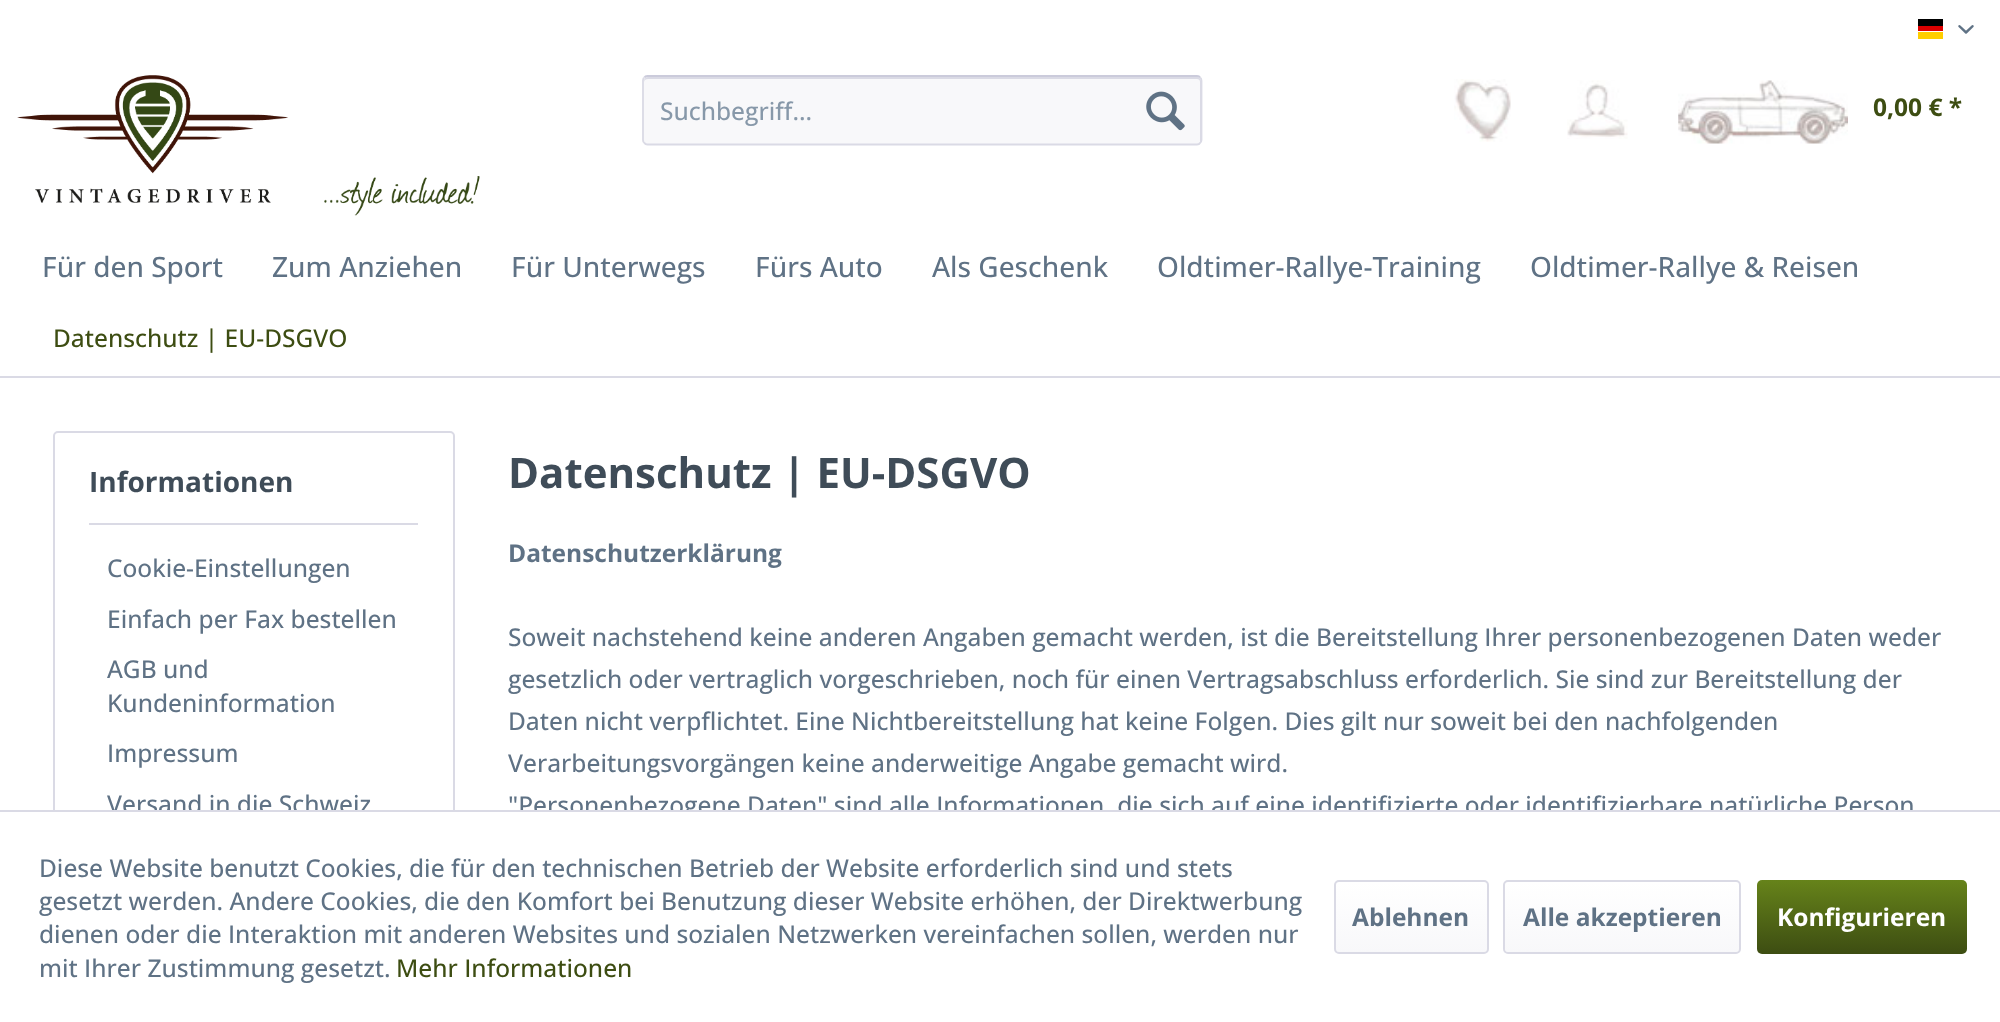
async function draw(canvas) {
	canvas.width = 2000;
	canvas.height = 1022;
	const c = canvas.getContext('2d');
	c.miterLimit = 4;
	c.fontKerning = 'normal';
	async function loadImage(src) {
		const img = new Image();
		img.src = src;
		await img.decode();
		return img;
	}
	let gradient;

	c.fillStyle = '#fff';
	c.fillRect(0, 0, 2000, 1022);
	c.drawImage(await loadImage('img1.png'), 0, 0, 2000, 233);
	for (const [x, y, w, h, color] of [
		[1918, 19, 25, 7, '#000'],
		[1918, 26, 25, 5, '#d00'],
		[1918, 32, 25, 7, '#ffce00'],
	]) {
		c.fillStyle = color;
		c.fillRect(x, y, w, h);
	}
	c.drawImage(await loadImage('img2.png'), 1958, 25, 16, 9);
	c.drawImage(await loadImage('img3.png'), 17, 75, 463, 141);
	c.fillStyle = '#f8f8fa';
	c.beginPath();
	c.roundRect(642, 75, 560, 70, 5);
	c.fill();
	c.fillStyle = '#dadae5';
	c.beginPath();
	c.moveTo(648, 79);
	c.lineTo(1197, 79);
	c.bezierCurveTo(1199, 79, 1200, 80, 1200, 82);
	c.lineTo(1200, 143);
	c.bezierCurveTo(1201, 142, 1201, 141, 1201, 140);
	c.lineTo(1201, 81);
	c.bezierCurveTo(1201, 79, 1199, 77, 1197, 77);
	c.lineTo(648, 77);
	c.bezierCurveTo(646, 77, 644, 79, 644, 81);
	c.lineTo(644, 82);
	c.bezierCurveTo(644, 80, 646, 79, 648, 79);
	c.closePath();
	c.fill();
	c.beginPath();
	c.moveTo(644.5, 77.5);
	c.bezierCurveTo(645, 76.5, 646.5, 76, 647.5, 76);
	c.lineTo(1197, 76);
	c.bezierCurveTo(1198, 76, 1199.5, 76.5, 1200, 77.5);
	c.strokeStyle = '#cbcbdb';
	c.lineWidth = 1.8;
	c.stroke();
	c.beginPath();
	c.moveTo(1200, 77.5);
	c.bezierCurveTo(1201, 78, 1201.5, 79.5, 1201.5, 80.5);
	c.lineTo(1201.5, 140);
	c.bezierCurveTo(1201.5, 141, 1201, 142.5, 1200, 143);
	c.bezierCurveTo(1199.5, 144, 1198, 144.5, 1197, 144.5);
	c.lineTo(647.5, 144.5);
	c.bezierCurveTo(646.5, 144.5, 645, 144, 644.5, 143);
	c.bezierCurveTo(643.5, 142.5, 643, 141, 643, 140);
	c.lineTo(643, 80.5);
	c.bezierCurveTo(643, 79.5, 643.5, 78, 644.5, 77.5);
	c.strokeStyle = '#dadae5';
	c.stroke();
	c.font = '500 24.5px Open Sans';
	c.fillStyle = '#8798a9';
	c.fillText('Suchbegriff...', 660, 120);
	c.drawImage(await loadImage('img4.png'), 1146, 91, 39, 40);
	c.drawImage(await loadImage('img5.png'), 1454, 79, 57, 63);
	c.drawImage(await loadImage('img6.png'), 1567, 80, 61, 59);
	c.drawImage(await loadImage('img7.png'), 1678, 80, 170, 64);
	c.font = 'bold 24.5px Open Sans';
	c.fillStyle = '#3d4d12';
	c.fillText('0,00 € *', 1873, 116);
	c.font = '500 28px Open Sans';
	c.fillStyle = '#5f7285';
	for (const [text, x, y] of [
		['Für den Sport', 42, 277],
		['Zum Anziehen', 272, 277],
		['Für Unterwegs', 511, 277],
		['Fürs Auto', 755, 277],
		['Als Geschenk', 932, 277],
		['Oldtimer-Rallye-Training', 1157, 277],
		['Oldtimer-Rallye & Reisen', 1530, 277],
	]) {
		c.fillText(text, x, y);
	}
	c.fillStyle = '#dadae5';
	c.fillRect(0, 376, 2000, 2);
	c.font = '500 24.5px Open Sans';
	c.fillStyle = '#3d4d12';
	c.fillText('Datenschutz | EU-DSGVO', 53, 347);
	c.beginPath();
	c.roundRect(54, 432, 400, 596, 4);
	c.lineWidth = 2;
	c.stroke();
	c.fillStyle = '#dadae5';
	c.fillRect(89, 523, 329, 2);
	c.font = 'bold 28px Open Sans';
	c.fillStyle = '#3f4c58';
	c.fillText('Informationen', 89, 492);
	c.font = '500 24.5px Open Sans';
	c.fillStyle = '#5f7285';
	for (const [text, x, y] of [
		['Cookie-Einstellungen', 107, 577],
		['Einfach per Fax bestellen', 107, 628],
		['AGB und', 107, 678],
		['Kundeninformation', 107, 712],
		['Impressum', 107, 762],
		['Versand in die Schweiz', 107, 813],
	]) {
		c.fillText(text, x, y);
	}
	c.font = 'bold 42px Open Sans';
	c.fillStyle = '#3f4c58';
	c.fillText('Datenschutz | EU-DSGVO', 508, 488);
	c.font = 'bold 24.5px Open Sans';
	c.fillStyle = '#5f7285';
	c.fillText('Datenschutzerklärung', 508, 562);
	c.font = '500 24.5px Open Sans';
	for (const [text, x, y] of [
		['Soweit nachstehend keine anderen Angaben gemacht werden, ist die Bereitstellung Ihrer personenbezogenen Daten weder', 508, 646],
		['gesetzlich oder vertraglich vorgeschrieben, noch für einen Vertragsabschluss erforderlich. Sie sind zur Bereitstellung der', 508, 688],
		['Daten nicht verpflichtet. Eine Nichtbereitstellung hat keine Folgen. Dies gilt nur soweit bei den nachfolgenden', 508, 730],
		['Verarbeitungsvorgängen keine anderweitige Angabe gemacht wird.', 508, 772],
		['"Personenbezogene Daten" sind alle Informationen, die sich auf eine identifizierte oder identifizierbare natürliche Person', 508, 814],
	]) {
		c.fillText(text, x, y);
	}
	c.fillStyle = '#fff';
	c.fillRect(53, 812, 1860, 210);
	c.fillStyle = '#dadae5';
	c.fillRect(0, 810, 2000, 2);
	c.fillStyle = '#5f7285';
	for (const [text, x, y] of [
		['Diese Website benutzt Cookies, die für den technischen Betrieb der Website erforderlich sind und stets', 39, 877],
		['gesetzt werden. Andere Cookies, die den Komfort bei Benutzung dieser Website erhöhen, der Direktwerbung', 39, 910],
		['dienen oder die Interaktion mit anderen Websites und sozialen Netzwerken vereinfachen sollen, werden nur', 39, 943],
		['mit Ihrer Zustimmung gesetzt.', 39, 977],
	]) {
		c.fillText(text, x, y);
	}
	c.fillStyle = '#3d4d12';
	c.fillText('Mehr Informationen', 396, 977);
	gradient = c.createLinearGradient(1411, 882, 1411, 952);
	gradient.addColorStop(0, '#fff');
	gradient.addColorStop(1, '#f8f8fa');
	c.fillStyle = gradient;
	c.beginPath();
	c.roundRect(1335, 882, 153, 70, 4);
	c.fill();
	c.beginPath();
	c.roundRect(1335, 881, 153, 72, 4);
	c.stroke();
	c.font = 'bold 24.5px Open Sans';
	c.fillStyle = '#5f7285';
	c.fillText('Ablehnen', 1352, 926);
	gradient = c.createLinearGradient(1622, 882, 1622, 952);
	gradient.addColorStop(0, '#fff');
	gradient.addColorStop(1, '#f8f8fa');
	c.fillStyle = gradient;
	c.beginPath();
	c.roundRect(1505, 882, 235, 70, 4);
	c.fill();
	c.beginPath();
	c.roundRect(1504, 881, 236, 72, 4);
	c.stroke();
	c.fillStyle = '#5f7285';
	c.fillText('Alle akzeptieren', 1523, 926);
	gradient = c.createLinearGradient(1862, 880, 1862, 954);
	gradient.addColorStop(0, '#66831a');
	gradient.addColorStop(1, '#3d4d12');
	c.fillStyle = gradient;
	c.beginPath();
	c.roundRect(1757, 880, 210, 74, 5);
	c.fill();
	c.fillStyle = '#fff';
	c.fillText('Konfigurieren', 1777, 926);
}

draw(document.querySelector('canvas'));
